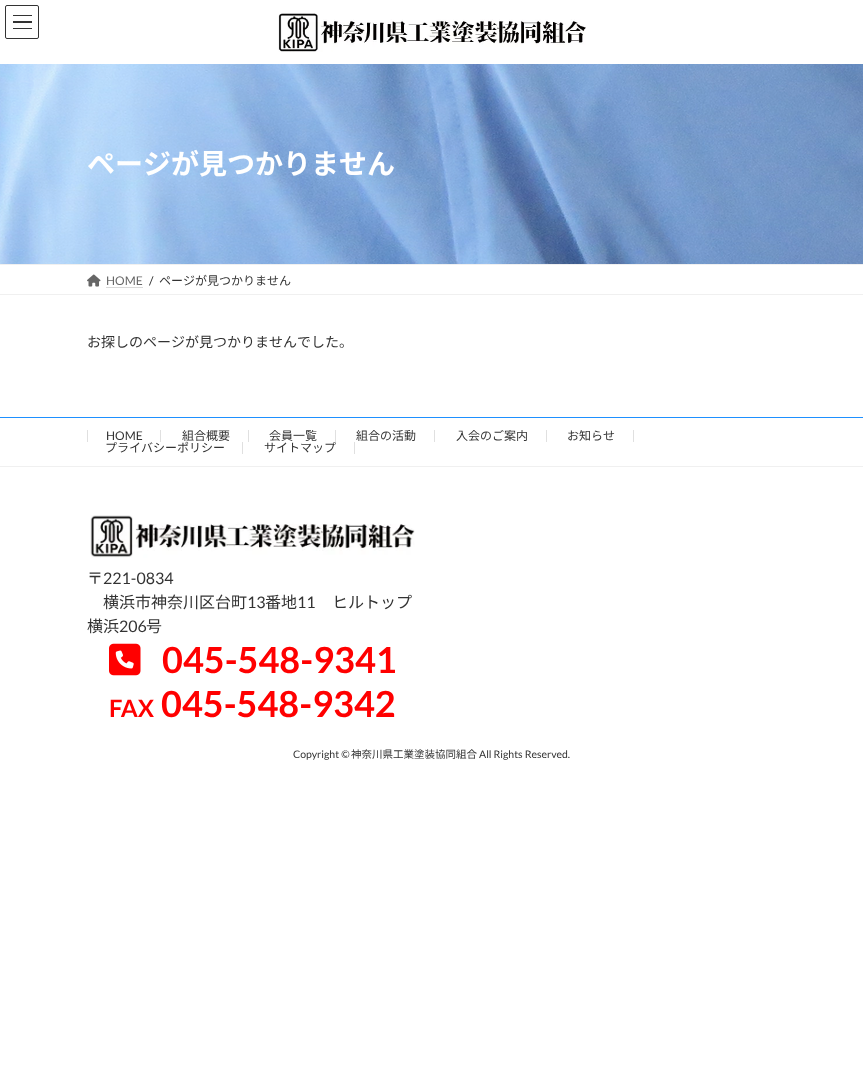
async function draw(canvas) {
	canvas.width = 863;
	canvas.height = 1085;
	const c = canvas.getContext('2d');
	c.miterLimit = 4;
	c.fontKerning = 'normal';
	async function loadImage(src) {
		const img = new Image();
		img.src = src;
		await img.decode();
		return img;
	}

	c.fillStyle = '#fff';
	c.fillRect(0, 0, 863, 1085);
	for (const [x, y, w, h, color] of [
		[13, 15, 19, 1, '#333'],
		[13, 21, 19, 2, '#333'],
		[13, 28, 19, 1, '#333'],
	]) {
		c.fillStyle = color;
		c.fillRect(x, y, w, h);
	}
	c.beginPath();
	c.roundRect(5.5, 5.5, 33, 33, 1.5);
	c.strokeStyle = '#333';
	c.stroke();
	c.drawImage(await loadImage('img1.png'), 278, 13, 308, 39);
	c.drawImage(await loadImage('img2.png'), 0, 64, 863, 200);
	c.font = 'bold 28px Noto Sans JP';
	c.fillStyle = '#fff';
	c.fillText('ページが見つかりません', 87, 174);
	c.fillStyle = '#f0f0f0';
	c.fillRect(0, 264, 863, 1);
	c.fillRect(0, 294, 863, 1);
	c.drawImage(await loadImage('img3.png'), 87, 274, 14, 13);
	c.font = '12px Lato';
	c.fillStyle = '#666';
	c.fillText('HOME', 106, 285);
	c.beginPath();
	c.moveTo(106.5, 287.5);
	c.lineTo(143, 287.5);
	c.strokeStyle = '#b3b3b3';
	c.setLineDash([1, 1]);
	c.stroke();
	c.fillStyle = '#333';
	c.fillText('/', 149, 285);
	c.font = '12px Noto Sans JP';
	c.fillText('ページが見つかりません', 159, 285);
	c.font = '14px Noto Sans JP';
	c.fillText('お探しのページが見つかりませんでした。', 87, 347);
	for (const [x, y, w, h, color] of [
		[0, 417, 863, 1, '#1e90ff'],
		[0, 466, 863, 1, '#f0f0f0'],
		[160, 430, 1, 12, '#e0e0e0'],
		[87, 430, 1, 12, '#e0e0e0'],
	]) {
		c.fillStyle = color;
		c.fillRect(x, y, w, h);
	}
	c.font = '12px Lato';
	c.fillStyle = '#333';
	c.fillText('HOME', 106, 440);
	c.fillStyle = '#e0e0e0';
	c.fillRect(248, 430, 1, 12);
	c.font = '12px Noto Sans JP';
	c.fillStyle = '#333';
	c.fillText('組合概要', 182, 440);
	c.fillStyle = '#e0e0e0';
	c.fillRect(335, 430, 1, 12);
	c.fillStyle = '#333';
	c.fillText('会員一覧', 269, 440);
	c.fillStyle = '#e0e0e0';
	c.fillRect(434, 430, 1, 12);
	c.fillStyle = '#333';
	c.fillText('組合の活動', 356, 440);
	c.fillStyle = '#e0e0e0';
	c.fillRect(546, 430, 1, 12);
	c.fillStyle = '#333';
	c.fillText('入会のご案内', 456, 440);
	c.fillStyle = '#e0e0e0';
	c.fillRect(633, 430, 1, 12);
	c.fillStyle = '#333';
	c.fillText('お知らせ', 567, 440);
	c.fillStyle = '#e0e0e0';
	c.fillRect(242, 442, 1, 12);
	c.fillStyle = '#333';
	c.fillText('プライバシーポリシー', 105, 452);
	c.fillStyle = '#e0e0e0';
	c.fillRect(354, 442, 1, 12);
	c.fillStyle = '#333';
	c.fillText('サイトマップ', 264, 452);
	c.drawImage(await loadImage('img4.png'), 90, 515, 325, 43);
	c.font = '16px Noto Sans JP';
	c.fillText('〒', 87, 584);
	c.font = '16px Lato';
	c.fillText('221-0834', 103, 584);
	c.font = '16px Noto Sans JP';
	c.fillText('横浜市神奈川区台町', 103, 608);
	c.font = '16px Lato';
	c.fillText('13', 247, 608);
	c.font = '16px Noto Sans JP';
	c.fillText('番地', 265, 608);
	c.font = '16px Lato';
	c.fillText('11', 297, 608);
	c.font = '16px Noto Sans JP';
	c.fillText('ヒルトップ', 332, 608);
	c.fillText('横浜', 87, 632);
	c.font = '16px Lato';
	c.fillText('206', 119, 632);
	c.font = '16px Noto Sans JP';
	c.fillText('号', 146, 632);
	c.drawImage(await loadImage('img5.png'), 109, 643, 32, 33);
	c.font = 'bold 36px Lato';
	c.fillStyle = '#f00';
	c.fillText('045-548-9341', 162, 673);
	c.font = 'bold 24px Lato';
	c.fillText('FAX', 109, 717);
	c.font = 'bold 36px Lato';
	c.fillText('045-548-9342', 161, 717);
	c.font = '10.5px Lato';
	c.fillStyle = '#333';
	c.fillText('Copyright ©', 293, 758);
	c.font = '10.5px Noto Sans JP';
	c.fillText('神奈川県工業塗装協同組合', 351, 758);
	c.font = '10.5px Lato';
	c.fillText('All Rights Reserved.', 479, 758);
}

draw(document.querySelector('canvas'));
